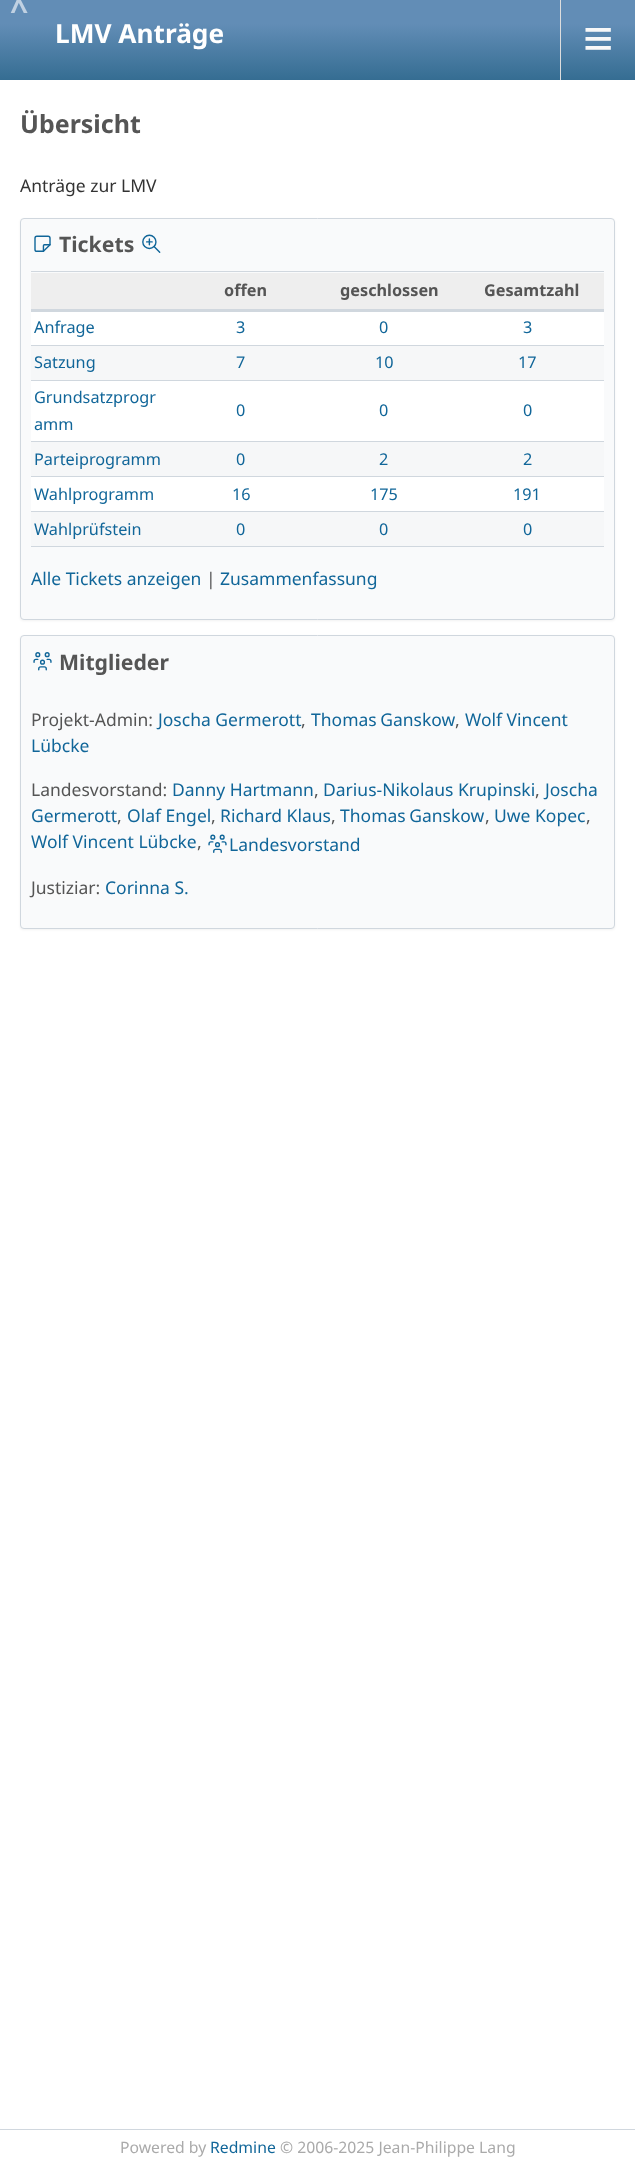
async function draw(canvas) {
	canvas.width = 635;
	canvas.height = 2163;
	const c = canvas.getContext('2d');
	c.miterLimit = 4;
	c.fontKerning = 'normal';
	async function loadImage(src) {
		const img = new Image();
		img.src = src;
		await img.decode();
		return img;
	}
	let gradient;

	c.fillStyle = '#fff';
	c.fillRect(0, 0, 635, 2163);
	gradient = c.createLinearGradient(318, 0, 318, 80);
	gradient.addColorStop(0.3, '#628db6');
	gradient.addColorStop(1, '#356d92');
	c.fillStyle = gradient;
	c.fillRect(0, 0, 635, 80);
	c.letterSpacing = '4px';
	c.font = 'bold 32px Noto Sans';
	c.fillStyle = '#c0d1e2';
	c.fillText('^', 10, 21);
	c.letterSpacing = '0px';
	c.font = 'bold 26.25px Noto Sans';
	c.fillStyle = '#fff';
	c.fillText('LMV Anträge', 55, 43);
	c.fillStyle = '#ddd';
	c.fillRect(560, 0, 1, 80);
	c.font = '52px Liberation Sans';
	c.fillStyle = '#f8f8f8';
	c.fillText('≡', 583, 56);
	c.font = 'bold 25px Noto Sans';
	c.fillStyle = '#555';
	c.fillText('Übersicht', 20, 133);
	c.font = '17.5px Noto Sans';
	c.fillStyle = '#333';
	c.fillText('Anträge zur LMV', 20, 192);
	c.fillStyle = '#0000000d';
	c.filter = 'blur(1px)';
	c.beginPath();
	c.roundRect(20, 219, 595, 402, 4);
	c.fill();
	c.filter = 'none';
	c.fillStyle = '#f9fafb';
	c.beginPath();
	c.roundRect(20.5, 218.5, 594, 401, 3.5);
	c.fill();
	c.strokeStyle = '#d0d7de';
	c.stroke();
	c.drawImage(await loadImage('img1.png'), 34, 235, 17, 17);
	c.font = 'bold 21.25px Noto Sans';
	c.fillStyle = '#555';
	c.fillText('Tickets', 59, 252);
	c.drawImage(await loadImage('img2.png'), 142, 234, 19, 19);
	for (const [x, y, w, h, color] of [
		[31, 271, 573, 1, '#d0d7de'],
		[31, 546, 573, 1, '#d0d7de'],
		[31, 273, 573, 36, '#eee'],
	]) {
		c.fillStyle = color;
		c.fillRect(x, y, w, h);
	}
	c.font = 'bold 16.25px Noto Sans';
	c.fillStyle = '#555';
	c.fillText('offen', 224, 296);
	c.fillText('geschlossen', 340, 296);
	c.fillStyle = '#d0d7de';
	c.fillRect(31, 309, 573, 3);
	c.fillStyle = '#555';
	c.fillText('Gesamtzahl', 484, 296);
	c.fillStyle = '#fff';
	c.fillRect(31, 312, 573, 33);
	c.font = '16.25px Noto Sans';
	c.fillStyle = '#169';
	for (const [text, x, y] of [
		['Anfrage', 34, 333],
		['3', 236, 333],
		['0', 379, 333],
		['3', 523, 333],
	]) {
		c.fillText(text, x, y);
	}
	c.fillStyle = '#f6f7f8';
	c.fillRect(31, 346, 573, 34);
	c.fillStyle = '#169';
	for (const [text, x, y] of [
		['Satzung', 34, 368],
		['7', 236, 368],
		['10', 375, 368],
	]) {
		c.fillText(text, x, y);
	}
	c.fillStyle = '#d0d7de';
	c.fillRect(31, 345, 573, 1);
	c.fillStyle = '#169';
	c.fillText('17', 518, 368);
	c.fillStyle = '#fff';
	c.fillRect(31, 381, 573, 60);
	c.fillStyle = '#169';
	for (const [text, x, y] of [
		['Grundsatzprogr', 34, 403],
		['amm', 34, 430],
		['0', 236, 416],
		['0', 379, 416],
	]) {
		c.fillText(text, x, y);
	}
	c.fillStyle = '#d0d7de';
	c.fillRect(31, 380, 573, 1);
	c.fillStyle = '#169';
	c.fillText('0', 523, 416);
	c.fillStyle = '#f6f7f8';
	c.fillRect(31, 442, 573, 34);
	c.fillStyle = '#169';
	for (const [text, x, y] of [
		['Parteiprogramm', 34, 465],
		['0', 236, 465],
		['2', 379, 465],
	]) {
		c.fillText(text, x, y);
	}
	c.fillStyle = '#d0d7de';
	c.fillRect(31, 441, 573, 1);
	c.fillStyle = '#169';
	c.fillText('2', 523, 465);
	c.fillStyle = '#fff';
	c.fillRect(31, 477, 573, 34);
	c.fillStyle = '#169';
	for (const [text, x, y] of [
		['Wahlprogramm', 34, 500],
		['16', 232, 500],
		['175', 370, 500],
	]) {
		c.fillText(text, x, y);
	}
	c.fillStyle = '#d0d7de';
	c.fillRect(31, 476, 573, 1);
	c.fillStyle = '#169';
	c.fillText('191', 513, 500);
	c.fillStyle = '#f6f7f8';
	c.fillRect(31, 512, 573, 34);
	c.fillStyle = '#169';
	for (const [text, x, y] of [
		['Wahlprüfstein', 34, 535],
		['0', 236, 535],
		['0', 379, 535],
	]) {
		c.fillText(text, x, y);
	}
	c.fillStyle = '#d0d7de';
	c.fillRect(31, 511, 573, 1);
	c.fillStyle = '#169';
	c.fillText('0', 523, 535);
	c.font = '17.5px Noto Sans';
	c.fillText('Alle Tickets anzeigen', 31, 585);
	c.fillStyle = '#555';
	c.fillText('|', 206, 585);
	c.fillStyle = '#169';
	c.fillText('Zusammenfassung', 220, 585);
	c.fillStyle = '#0000000d';
	c.filter = 'blur(1px)';
	c.beginPath();
	c.roundRect(20, 636, 595, 294, 4);
	c.fill();
	c.filter = 'none';
	c.fillStyle = '#f9fafb';
	c.beginPath();
	c.roundRect(20.5, 635.5, 594, 293, 3.5);
	c.fill();
	c.stroke();
	c.drawImage(await loadImage('img3.png'), 33, 652, 19, 19);
	c.font = 'bold 21.25px Noto Sans';
	c.fillStyle = '#555';
	c.fillText('Mitglieder', 59, 670);
	c.font = '17.5px Noto Sans';
	c.fillText('Projekt-Admin:', 31, 726);
	c.fillStyle = '#169';
	c.fillText('Joscha Germerott', 158, 726);
	c.fillStyle = '#555';
	c.fillText(',', 301, 726);
	c.wordSpacing = '-1px';
	c.fillStyle = '#169';
	c.fillText('Thomas Ganskow', 311, 726);
	c.wordSpacing = '0px';
	c.fillStyle = '#555';
	c.fillText(',', 455, 726);
	c.fillStyle = '#169';
	c.fillText('Wolf Vincent', 465, 726);
	c.fillText('Lübcke', 31, 752);
	c.fillStyle = '#555';
	c.fillText('Landesvorstand:', 31, 796);
	c.fillStyle = '#169';
	c.fillText('Danny Hartmann', 172, 796);
	c.fillStyle = '#555';
	c.fillText(',', 314, 796);
	c.fillStyle = '#169';
	c.fillText('Darius-Nikolaus Krupinski', 323, 796);
	c.fillStyle = '#555';
	c.fillText(',', 535, 796);
	c.fillStyle = '#169';
	c.fillText('Joscha', 545, 796);
	c.fillText('Germerott', 31, 822);
	c.fillStyle = '#555';
	c.fillText(',', 117, 822);
	c.fillStyle = '#169';
	c.fillText('Olaf Engel', 127, 822);
	c.fillStyle = '#555';
	c.fillText(',', 211, 822);
	c.fillStyle = '#169';
	c.fillText('Richard Klaus', 220, 822);
	c.fillStyle = '#555';
	c.fillText(',', 331, 822);
	c.wordSpacing = '-1px';
	c.fillStyle = '#169';
	c.fillText('Thomas Ganskow', 340, 822);
	c.wordSpacing = '0px';
	c.fillStyle = '#555';
	c.fillText(',', 485, 822);
	c.fillStyle = '#169';
	c.fillText('Uwe Kopec', 494, 822);
	c.fillStyle = '#555';
	c.fillText(',', 586, 822);
	c.fillStyle = '#169';
	c.fillText('Wolf Vincent Lübcke', 31, 848);
	c.fillStyle = '#555';
	c.fillText(',', 197, 848);
	c.drawImage(await loadImage('img4.png'), 208, 834, 19, 19);
	c.fillStyle = '#169';
	c.fillText('Landesvorstand', 229, 851);
	c.fillStyle = '#555';
	c.fillText('Justiziar:', 31, 894);
	c.fillStyle = '#169';
	c.fillText('Corinna S.', 105, 894);
	c.fillStyle = '#d0d7de';
	c.fillRect(0, 2129, 635, 1);
	c.font = '15.75px Noto Sans';
	c.fillStyle = '#aaa';
	c.fillText('Powered by', 120, 2153);
	c.fillStyle = '#169';
	c.fillText('Redmine', 210, 2153);
	c.fillStyle = '#aaa';
	c.fillText('© 2006-2025 Jean-Philippe Lang', 280, 2153);
}

draw(document.querySelector('canvas'));
